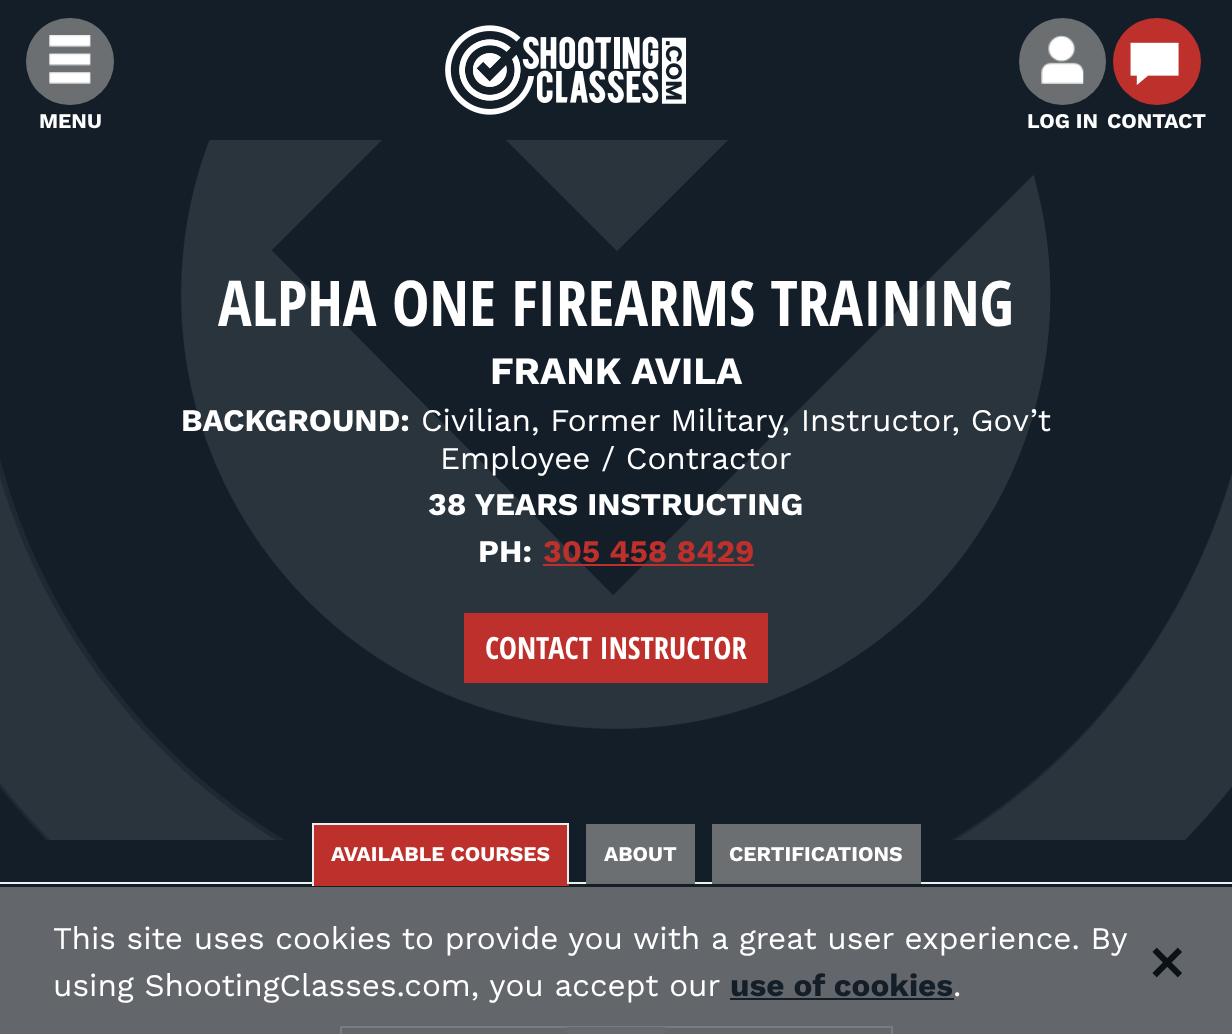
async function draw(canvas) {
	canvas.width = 1232;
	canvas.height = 1034;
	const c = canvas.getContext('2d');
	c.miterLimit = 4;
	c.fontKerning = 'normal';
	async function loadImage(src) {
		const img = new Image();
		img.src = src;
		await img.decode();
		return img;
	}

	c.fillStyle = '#131e29';
	c.fillRect(0, 0, 1232, 1034);
	c.drawImage(await loadImage('img1.png'), 445, 25, 242, 90);
	c.fillStyle = '#6c6f72';
	c.beginPath();
	c.roundRect(26, 18, 88, 87, 43.5);
	c.fill();
	c.drawImage(await loadImage('img2.png'), 49, 35, 42, 49);
	c.font = 'bold 21px Work Sans';
	c.fillStyle = '#fff';
	c.fillText('MENU', 39, 128);
	c.fillStyle = '#6c6f72';
	c.beginPath();
	c.arc(1062.5, 61.5, 43.5, 0, 2 * Math.PI);
	c.fill();
	c.drawImage(await loadImage('img3.png'), 1041, 35, 43, 49);
	c.fillStyle = '#fff';
	c.fillText('LOG IN', 1027, 128);
	c.fillStyle = '#bd302c';
	c.beginPath();
	c.roundRect(1113, 18, 88, 87, 43.5);
	c.fill();
	c.drawImage(await loadImage('img4.png'), 1130, 42, 49, 43);
	c.fillStyle = '#fff';
	c.fillText('CONTACT', 1107, 128);
	c.fillStyle = '#63676b';
	c.fillRect(0, 887, 1232, 147);
	c.drawImage(await loadImage('img5.png'), 0, 140, 1232, 700);
	c.font = 'bold 63px Open Sans Condensed';
	c.fillStyle = '#fff';
	c.fillText('ALPHA ONE FIREARMS TRAINING', 218, 326);
	c.font = 'bold 38.5px Work Sans';
	c.fillText('FRANK AVILA', 490, 384);
	c.font = 'bold 31.5px Work Sans';
	c.fillText('BACKGROUND:', 181, 431);
	c.font = '31.5px Work Sans';
	c.fillText('Civilian, Former Military, Instructor, Gov’t', 421, 431);
	c.fillText('Employee / Contractor', 440, 469);
	c.font = 'bold 31.5px Work Sans';
	c.fillText('38 YEARS INSTRUCTING', 428, 515);
	c.fillText('PH:', 478, 562);
	c.fillStyle = '#bd302c';
	c.fillText('305 458 8429', 543, 562);
	c.fillRect(543, 564, 211, 2);
	c.fillRect(464, 613, 304, 70);
	c.font = 'bold 30.6px Open Sans Condensed';
	c.fillStyle = '#fff';
	c.fillText('CONTACT INSTRUCTOR', 485, 659);
	c.fillStyle = '#eee';
	c.fillRect(0, 882, 1232, 2);
	c.fillStyle = '#bd302c';
	c.fillRect(314, 825, 253, 59);
	c.font = 'bold 21px Work Sans';
	c.fillStyle = '#fff';
	c.fillText('AVAILABLE COURSES', 331, 861);
	for (const [x, y, w, h, color] of [
		[312, 823, 257, 2, '#eee'],
		[567, 823, 2, 63, '#eee'],
		[312, 884, 257, 2, '#bd302c'],
		[312, 823, 2, 63, '#eee'],
		[586, 824, 109, 60, '#6c6f72'],
	]) {
		c.fillStyle = color;
		c.fillRect(x, y, w, h);
	}
	c.fillStyle = '#fff';
	c.fillText('ABOUT', 604, 861);
	c.fillStyle = '#6c6f72';
	c.fillRect(712, 824, 209, 60);
	c.fillStyle = '#fff';
	c.fillText('CERTIFICATIONS', 729, 861);
	c.strokeStyle = '#797c7e';
	c.lineWidth = 2;
	c.strokeRect(341, 1027, 551, 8);
	c.fillStyle = '#676b6f';
	c.fillRect(567, 1027, 98, 7);
	c.font = '31.5px Work Sans';
	c.fillStyle = '#fff';
	c.fillText('This site uses cookies to provide you with a great user experience. By', 53, 949);
	c.fillText('using ShootingClasses.com, you accept our', 53, 996);
	c.font = 'bold 31.5px Work Sans';
	c.fillStyle = '#131e29';
	c.fillText('use of cookies', 730, 996);
	c.fillRect(730, 998, 224, 2);
	c.font = '31.5px Work Sans';
	c.fillStyle = '#fff';
	c.fillText('.', 953, 996);
	c.drawImage(await loadImage('img6.png'), 1152, 947, 30, 31);
}

draw(document.querySelector('canvas'));
